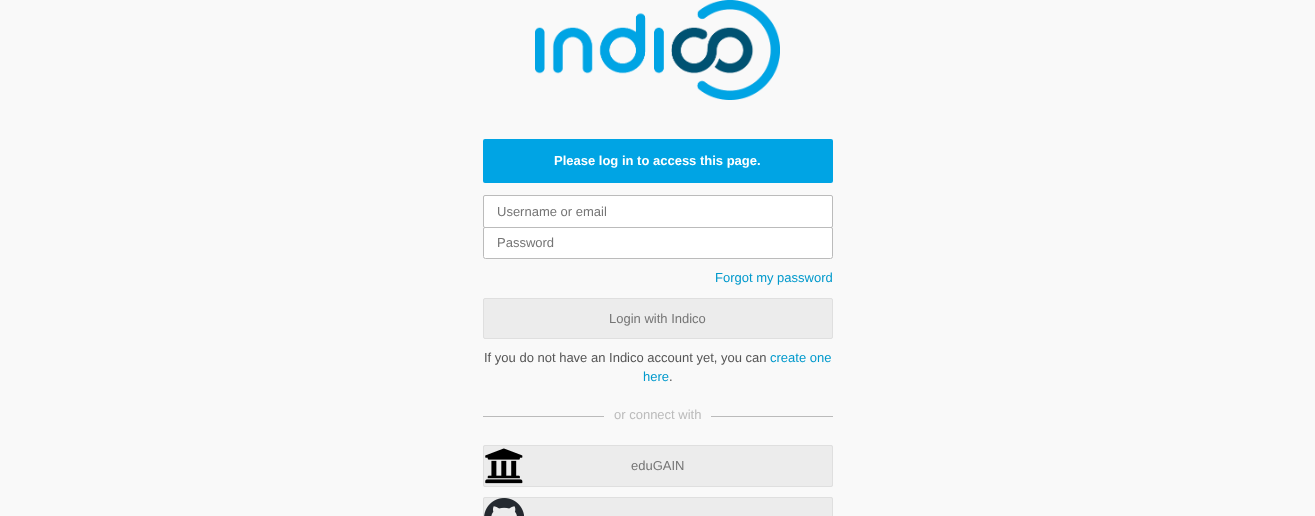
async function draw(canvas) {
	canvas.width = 1315;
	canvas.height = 516;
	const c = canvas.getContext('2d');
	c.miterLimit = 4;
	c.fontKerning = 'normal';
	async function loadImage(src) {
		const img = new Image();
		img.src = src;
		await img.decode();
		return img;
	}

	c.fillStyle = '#f9f9f9';
	c.fillRect(0, 0, 1315, 516);
	c.drawImage(await loadImage('img1.png'), 535, 0, 245, 100);
	c.fillStyle = '#00a4e4';
	c.beginPath();
	c.roundRect(483, 139, 350, 44, 2);
	c.fill();
	c.font = 'bold 13px Liberation Sans';
	c.fillStyle = '#fff';
	c.fillText('Please log in to access this page.', 554, 165);
	c.beginPath();
	c.roundRect(483.5, 195.5, 349, 32, 1.5);
	c.fill();
	c.strokeStyle = '#bbb';
	c.stroke();
	c.font = '13px Liberation Sans';
	c.fillStyle = '#757575';
	c.fillText('Username or email', 497, 216);
	c.fillStyle = '#fff';
	c.beginPath();
	c.roundRect(483.5, 227.5, 349, 31, [1.5, 1.5, 2, 2]);
	c.fill();
	c.stroke();
	c.fillStyle = '#757575';
	c.fillText('Password', 497, 247);
	c.fillStyle = '#09c';
	c.fillText('Forgot my password', 715, 282);
	c.fillStyle = '#ececec';
	c.beginPath();
	c.roundRect(483.5, 298.5, 349, 40, 1.5);
	c.fill();
	c.strokeStyle = '#dfdfdf';
	c.stroke();
	c.fillStyle = '#757575';
	c.fillText('Login with Indico', 609, 323);
	c.fillStyle = '#555';
	c.fillText('If you do not have an Indico account yet, you can', 484, 362);
	c.fillStyle = '#09c';
	c.fillText('create one', 770, 362);
	c.fillText('here', 643, 381);
	c.fillStyle = '#555';
	c.fillText('.', 669, 381);
	c.fillStyle = '#bbb';
	c.fillRect(483, 416, 121, 1);
	c.fillText('or connect with', 614, 419);
	c.fillRect(711, 416, 122, 1);
	c.fillStyle = '#ececec';
	c.beginPath();
	c.roundRect(483, 445, 350, 42, 2);
	c.fill();
	c.drawImage(await loadImage('img2.png'), 485, 448, 38, 36);
	c.beginPath();
	c.roundRect(483.5, 445.5, 349, 41, 1.5);
	c.stroke();
	c.fillStyle = '#757575';
	c.fillText('eduGAIN', 631, 470);
	c.fillStyle = '#ececec';
	c.beginPath();
	c.roundRect(483, 497, 350, 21, 2);
	c.fill();
	c.drawImage(await loadImage('img3.png'), 484, 498, 40, 18);
	c.beginPath();
	c.roundRect(483.5, 497.5, 349, 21, 1.5);
	c.stroke();
}

draw(document.querySelector('canvas'));
